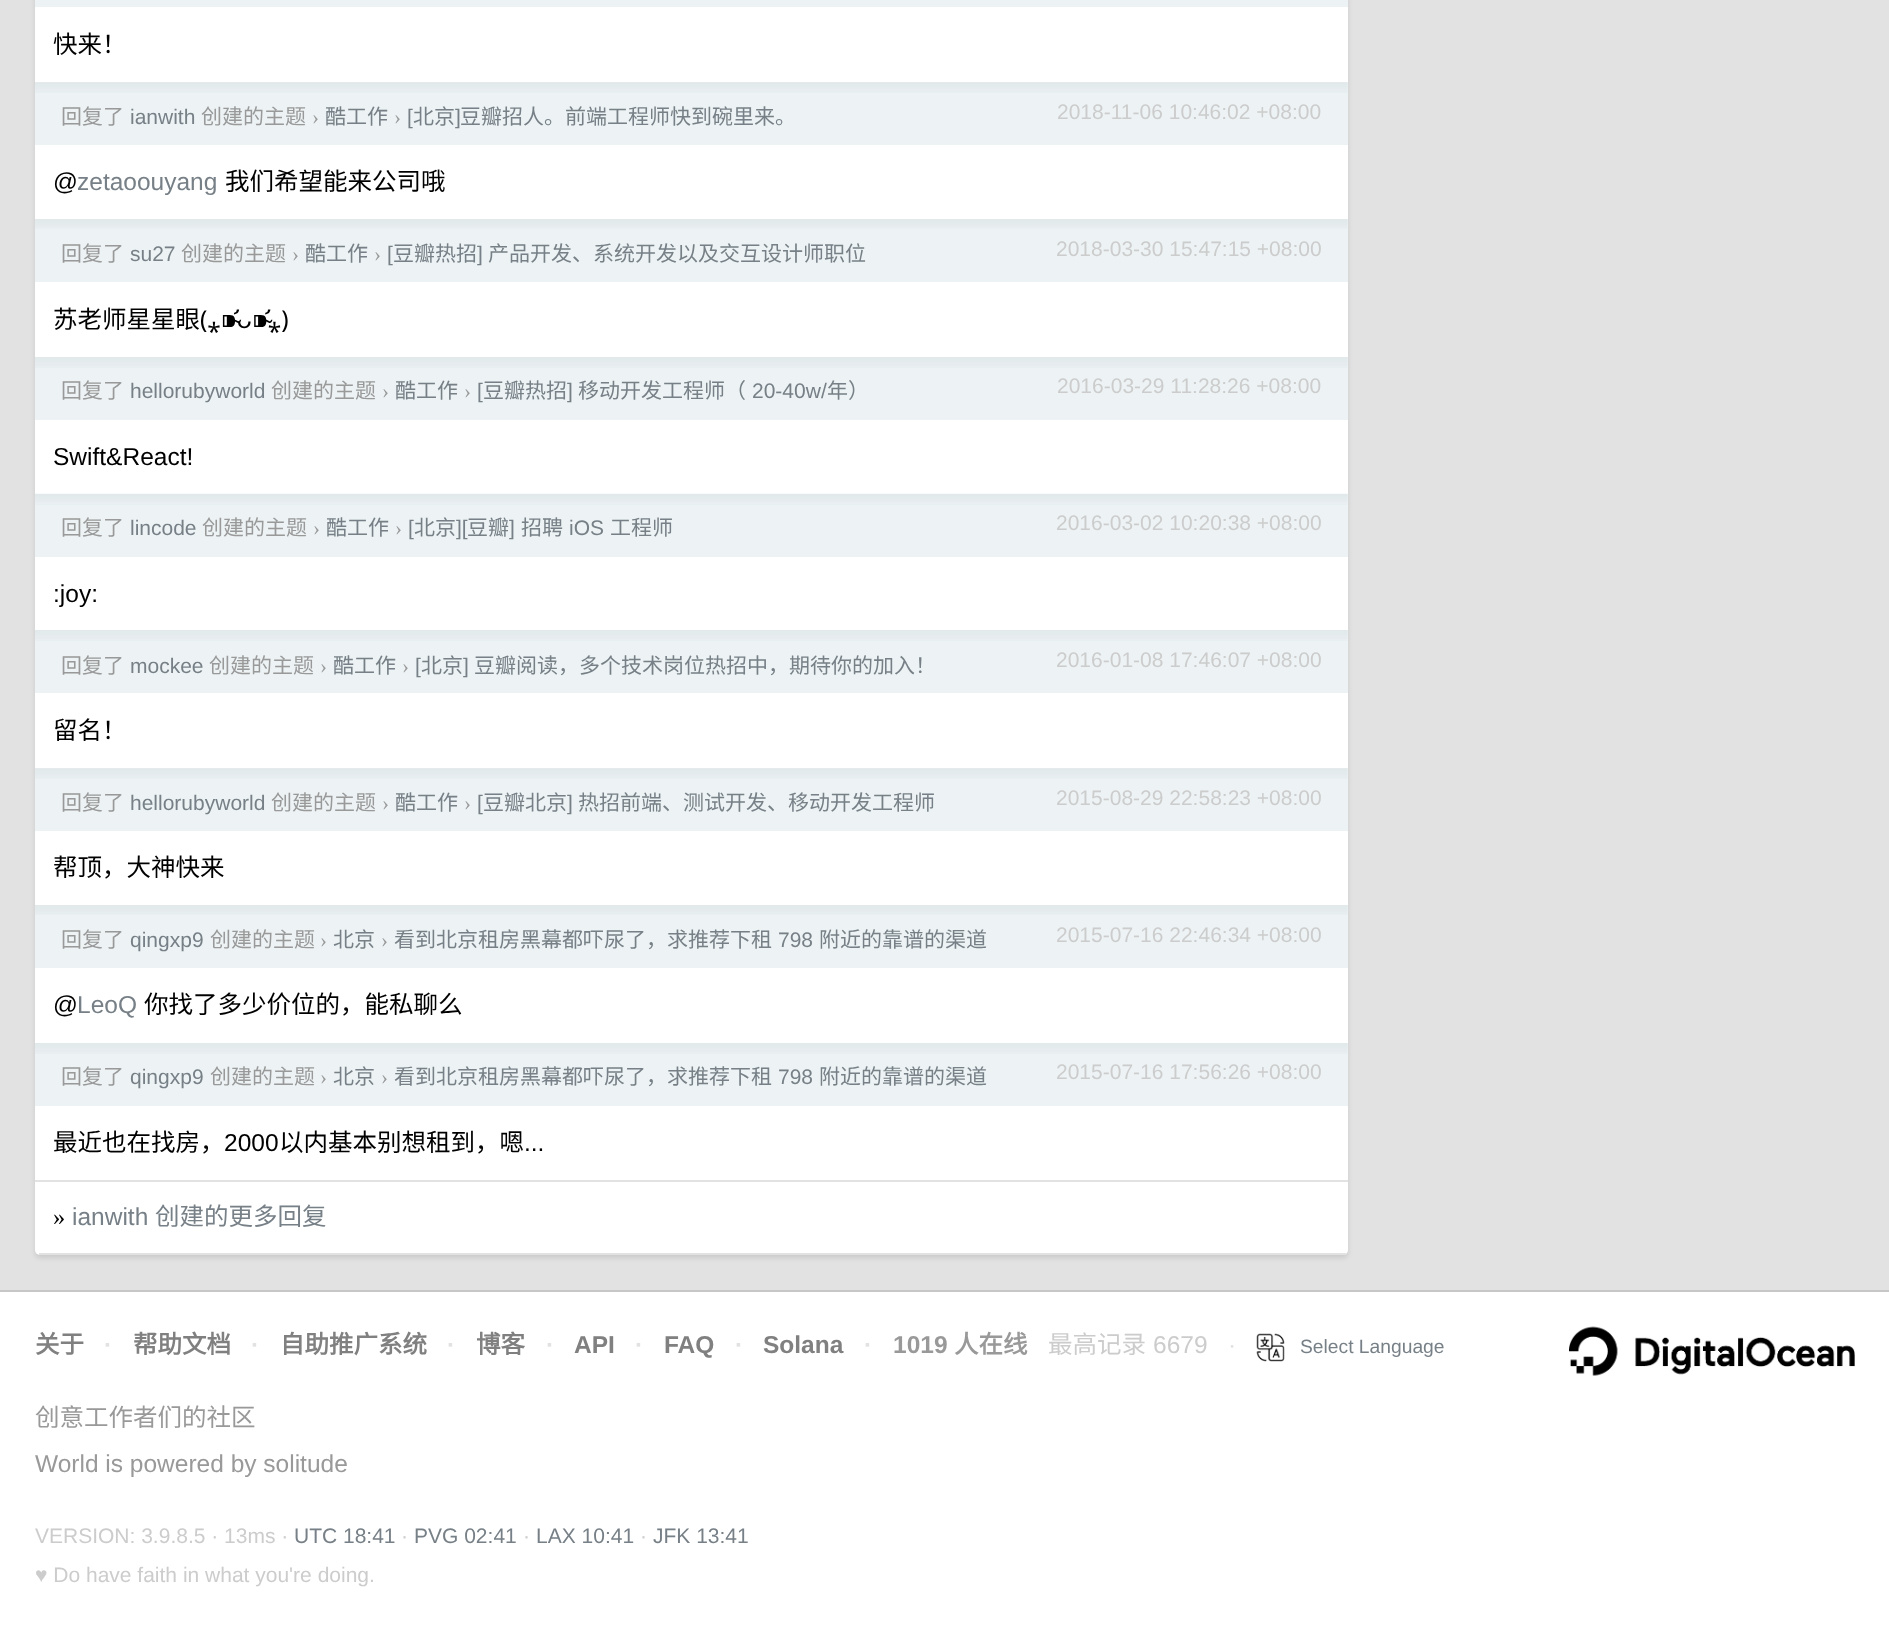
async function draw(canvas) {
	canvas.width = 1889;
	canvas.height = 1628;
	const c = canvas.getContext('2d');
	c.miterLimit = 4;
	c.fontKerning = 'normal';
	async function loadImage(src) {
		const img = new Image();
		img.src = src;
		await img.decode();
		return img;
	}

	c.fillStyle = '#fff';
	c.fillRect(0, 0, 1889, 1628);
	c.fillStyle = '#e2e2e2';
	c.fillRect(0, 0, 1889, 1290);
	c.fillStyle = '#0000001a';
	c.filter = 'blur(2.5px)';
	c.beginPath();
	c.roundRect(35, -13, 1313, 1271, 5);
	c.fill();
	c.filter = 'none';
	c.fillStyle = '#fff';
	c.beginPath();
	c.roundRect(35, -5, 1313, 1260, 5);
	c.fill();
	c.fillStyle = '#e2e2e2';
	c.fillRect(39, 1253, 1307, 2);
	c.fillStyle = '#edf3f5';
	c.fillRect(35, 0, 1313, 7);
	c.font = '24.5px Noto Sans CJK SC';
	c.fillStyle = '#000';
	c.fillText('快来！', 53, 53);
	c.fillStyle = '#edf3f5';
	c.fillRect(35, 82, 1313, 63);
	c.drawImage(await loadImage('img1.png'), 35, 82, 1313, 11);
	c.font = '21px Noto Sans CJK SC';
	c.fillStyle = '#999';
	c.fillText('回复了', 61, 124);
	c.font = '21px Liberation Sans';
	c.fillStyle = '#778087';
	c.fillText('ianwith', 130, 124);
	c.font = '21px Noto Sans CJK SC';
	c.fillStyle = '#999';
	c.fillText('创建的主题', 201, 124);
	c.font = '21px Liberation Serif';
	c.fillText('›', 312, 124);
	c.font = '21px Noto Sans CJK SC';
	c.fillStyle = '#778087';
	c.fillText('酷工作', 325, 124);
	c.font = '21px Liberation Serif';
	c.fillStyle = '#999';
	c.fillText('›', 394, 124);
	c.font = '21px Liberation Sans';
	c.fillStyle = '#778087';
	c.fillText('[', 407, 124);
	c.font = '21px Noto Sans CJK SC';
	c.fillText('北京', 413, 124);
	c.font = '21px Liberation Sans';
	c.fillText(']', 455, 124);
	c.font = '21px Noto Sans CJK SC';
	c.fillText('豆瓣招人。前端工程师快到碗里来。', 460, 124);
	c.font = '21px Liberation Sans';
	c.fillStyle = '#ccc';
	c.fillText('2018-11-06 10:46:02 +08:00', 1057, 119);
	c.font = '24.5px Liberation Sans';
	c.fillStyle = '#000';
	c.fillText('@', 53, 190);
	c.fillStyle = '#778087';
	c.fillText('zetaoouyang', 77, 190);
	c.font = '24.5px Noto Sans CJK SC';
	c.fillStyle = '#000';
	c.fillText('我们希望能来公司哦', 225, 190);
	c.fillStyle = '#edf3f5';
	c.fillRect(35, 219, 1313, 63);
	c.drawImage(await loadImage('img2.png'), 35, 219, 1313, 10);
	c.font = '21px Noto Sans CJK SC';
	c.fillStyle = '#999';
	c.fillText('回复了', 61, 261);
	c.font = '21px Liberation Sans';
	c.fillStyle = '#778087';
	c.fillText('su27', 130, 261);
	c.font = '21px Noto Sans CJK SC';
	c.fillStyle = '#999';
	c.fillText('创建的主题', 181, 261);
	c.font = '21px Liberation Serif';
	c.fillText('›', 292, 261);
	c.font = '21px Noto Sans CJK SC';
	c.fillStyle = '#778087';
	c.fillText('酷工作', 305, 261);
	c.font = '21px Liberation Serif';
	c.fillStyle = '#999';
	c.fillText('›', 374, 261);
	c.font = '21px Liberation Sans';
	c.fillStyle = '#778087';
	c.fillText('[', 387, 261);
	c.font = '21px Noto Sans CJK SC';
	c.fillText('豆瓣热招', 393, 261);
	c.font = '21px Liberation Sans';
	c.fillText(']', 477, 261);
	c.font = '21px Noto Sans CJK SC';
	c.fillText('产品开发、系统开发以及交互设计师职位', 488, 261);
	c.font = '21px Liberation Sans';
	c.fillStyle = '#ccc';
	c.fillText('2018-03-30 15:47:15 +08:00', 1056, 256);
	c.font = '24.5px Noto Sans CJK SC';
	c.fillStyle = '#000';
	c.fillText('苏老师星星眼', 53, 328);
	c.font = '24.5px Noto Sans';
	c.fillText('(⁎⁍̴̛ᴗ⁍̴̛⁎)', 200, 328);
	c.fillStyle = '#edf3f5';
	c.fillRect(35, 357, 1313, 63);
	c.drawImage(await loadImage('img3.png'), 35, 357, 1313, 11);
	c.font = '21px Noto Sans CJK SC';
	c.fillStyle = '#999';
	c.fillText('回复了', 61, 398);
	c.font = '21px Liberation Sans';
	c.fillStyle = '#778087';
	c.fillText('hellorubyworld', 130, 398);
	c.font = '21px Noto Sans CJK SC';
	c.fillStyle = '#999';
	c.fillText('创建的主题', 271, 398);
	c.font = '21px Liberation Serif';
	c.fillText('›', 382, 398);
	c.font = '21px Noto Sans CJK SC';
	c.fillStyle = '#778087';
	c.fillText('酷工作', 395, 398);
	c.font = '21px Liberation Serif';
	c.fillStyle = '#999';
	c.fillText('›', 464, 398);
	c.font = '21px Liberation Sans';
	c.fillStyle = '#778087';
	c.fillText('[', 477, 398);
	c.font = '21px Noto Sans CJK SC';
	c.fillText('豆瓣热招', 483, 398);
	c.font = '21px Liberation Sans';
	c.fillText(']', 567, 398);
	c.font = '21px Noto Sans CJK SC';
	c.fillText('移动开发工程师（', 578, 398);
	c.font = '21px Liberation Sans';
	c.fillText('20-40w/', 752, 398);
	c.font = '21px Noto Sans CJK SC';
	c.fillText('年）', 827, 398);
	c.font = '21px Liberation Sans';
	c.fillStyle = '#ccc';
	c.fillText('2016-03-29 11:28:26 +08:00', 1057, 393);
	c.font = '24.5px Liberation Sans';
	c.fillStyle = '#000';
	c.fillText('Swift&React!', 53, 465);
	c.fillStyle = '#edf3f5';
	c.fillRect(35, 494, 1313, 63);
	c.drawImage(await loadImage('img4.png'), 35, 493, 1313, 12);
	c.font = '21px Noto Sans CJK SC';
	c.fillStyle = '#999';
	c.fillText('回复了', 61, 535);
	c.font = '21px Liberation Sans';
	c.fillStyle = '#778087';
	c.fillText('lincode', 130, 535);
	c.font = '21px Noto Sans CJK SC';
	c.fillStyle = '#999';
	c.fillText('创建的主题', 202, 535);
	c.font = '21px Liberation Serif';
	c.fillText('›', 313, 535);
	c.font = '21px Noto Sans CJK SC';
	c.fillStyle = '#778087';
	c.fillText('酷工作', 326, 535);
	c.font = '21px Liberation Serif';
	c.fillStyle = '#999';
	c.fillText('›', 395, 535);
	c.font = '21px Liberation Sans';
	c.fillStyle = '#778087';
	c.fillText('[', 408, 535);
	c.font = '21px Noto Sans CJK SC';
	c.fillText('北京', 414, 535);
	c.font = '21px Liberation Sans';
	c.fillText('][', 456, 535);
	c.font = '21px Noto Sans CJK SC';
	c.fillText('豆瓣', 467, 535);
	c.font = '21px Liberation Sans';
	c.fillText(']', 509, 535);
	c.font = '21px Noto Sans CJK SC';
	c.fillText('招聘', 521, 535);
	c.font = '21px Liberation Sans';
	c.fillText('iOS', 569, 535);
	c.font = '21px Noto Sans CJK SC';
	c.fillText('工程师', 610, 535);
	c.font = '21px Liberation Sans';
	c.fillStyle = '#ccc';
	c.fillText('2016-03-02 10:20:38 +08:00', 1056, 530);
	c.font = '24.5px Liberation Sans';
	c.fillStyle = '#000';
	c.fillText(':joy:', 53, 602);
	c.fillStyle = '#edf3f5';
	c.fillRect(35, 630, 1313, 63);
	c.drawImage(await loadImage('img3.png'), 35, 630, 1313, 11);
	c.font = '21px Noto Sans CJK SC';
	c.fillStyle = '#999';
	c.fillText('回复了', 61, 673);
	c.font = '21px Liberation Sans';
	c.fillStyle = '#778087';
	c.fillText('mockee', 130, 673);
	c.font = '21px Noto Sans CJK SC';
	c.fillStyle = '#999';
	c.fillText('创建的主题', 209, 673);
	c.font = '21px Liberation Serif';
	c.fillText('›', 320, 673);
	c.font = '21px Noto Sans CJK SC';
	c.fillStyle = '#778087';
	c.fillText('酷工作', 333, 673);
	c.font = '21px Liberation Serif';
	c.fillStyle = '#999';
	c.fillText('›', 402, 673);
	c.font = '21px Liberation Sans';
	c.fillStyle = '#778087';
	c.fillText('[', 415, 673);
	c.font = '21px Noto Sans CJK SC';
	c.fillText('北京', 421, 673);
	c.font = '21px Liberation Sans';
	c.fillText(']', 463, 673);
	c.font = '21px Noto Sans CJK SC';
	c.fillText('豆瓣阅读，多个技术岗位热招中，期待你的加入！', 474, 673);
	c.font = '21px Liberation Sans';
	c.fillStyle = '#ccc';
	c.fillText('2016-01-08 17:46:07 +08:00', 1056, 667);
	c.font = '24.5px Noto Sans CJK SC';
	c.fillStyle = '#000';
	c.fillText('留名！', 53, 739);
	c.fillStyle = '#edf3f5';
	c.fillRect(35, 768, 1313, 63);
	c.drawImage(await loadImage('img5.png'), 35, 768, 1313, 11);
	c.font = '21px Noto Sans CJK SC';
	c.fillStyle = '#999';
	c.fillText('回复了', 61, 810);
	c.font = '21px Liberation Sans';
	c.fillStyle = '#778087';
	c.fillText('hellorubyworld', 130, 810);
	c.font = '21px Noto Sans CJK SC';
	c.fillStyle = '#999';
	c.fillText('创建的主题', 271, 810);
	c.font = '21px Liberation Serif';
	c.fillText('›', 382, 810);
	c.font = '21px Noto Sans CJK SC';
	c.fillStyle = '#778087';
	c.fillText('酷工作', 395, 810);
	c.font = '21px Liberation Serif';
	c.fillStyle = '#999';
	c.fillText('›', 464, 810);
	c.font = '21px Liberation Sans';
	c.fillStyle = '#778087';
	c.fillText('[', 477, 810);
	c.font = '21px Noto Sans CJK SC';
	c.fillText('豆瓣北京', 483, 810);
	c.font = '21px Liberation Sans';
	c.fillText(']', 567, 810);
	c.font = '21px Noto Sans CJK SC';
	c.fillText('热招前端、测试开发、移动开发工程师', 578, 810);
	c.font = '21px Liberation Sans';
	c.fillStyle = '#ccc';
	c.fillText('2015-08-29 22:58:23 +08:00', 1056, 805);
	c.font = '24.5px Noto Sans CJK SC';
	c.fillStyle = '#000';
	c.fillText('帮顶，大神快来', 53, 876);
	c.fillStyle = '#edf3f5';
	c.fillRect(35, 905, 1313, 63);
	c.drawImage(await loadImage('img6.png'), 35, 905, 1313, 10);
	c.font = '21px Noto Sans CJK SC';
	c.fillStyle = '#999';
	c.fillText('回复了', 61, 947);
	c.font = '21px Liberation Sans';
	c.fillStyle = '#778087';
	c.fillText('qingxp9', 130, 947);
	c.font = '21px Noto Sans CJK SC';
	c.fillStyle = '#999';
	c.fillText('创建的主题', 210, 947);
	c.font = '21px Liberation Serif';
	c.fillText('›', 320, 947);
	c.font = '21px Noto Sans CJK SC';
	c.fillStyle = '#778087';
	c.fillText('北京', 333, 947);
	c.font = '21px Liberation Serif';
	c.fillStyle = '#999';
	c.fillText('›', 381, 947);
	c.font = '21px Noto Sans CJK SC';
	c.fillStyle = '#778087';
	c.fillText('看到北京租房黑幕都吓尿了，求推荐下租', 394, 947);
	c.font = '21px Liberation Sans';
	c.fillText('798', 778, 947);
	c.font = '21px Noto Sans CJK SC';
	c.fillText('附近的靠谱的渠道', 819, 947);
	c.font = '21px Liberation Sans';
	c.fillStyle = '#ccc';
	c.fillText('2015-07-16 22:46:34 +08:00', 1056, 942);
	c.font = '24.5px Liberation Sans';
	c.fillStyle = '#000';
	c.fillText('@', 53, 1013);
	c.fillStyle = '#778087';
	c.fillText('LeoQ', 77, 1013);
	c.font = '24.5px Noto Sans CJK SC';
	c.fillStyle = '#000';
	c.fillText('你找了多少价位的，能私聊么', 144, 1013);
	c.fillStyle = '#edf3f5';
	c.fillRect(35, 1043, 1313, 63);
	c.drawImage(await loadImage('img3.png'), 35, 1043, 1313, 11);
	c.font = '21px Noto Sans CJK SC';
	c.fillStyle = '#999';
	c.fillText('回复了', 61, 1084);
	c.font = '21px Liberation Sans';
	c.fillStyle = '#778087';
	c.fillText('qingxp9', 130, 1084);
	c.font = '21px Noto Sans CJK SC';
	c.fillStyle = '#999';
	c.fillText('创建的主题', 210, 1084);
	c.font = '21px Liberation Serif';
	c.fillText('›', 320, 1084);
	c.font = '21px Noto Sans CJK SC';
	c.fillStyle = '#778087';
	c.fillText('北京', 333, 1084);
	c.font = '21px Liberation Serif';
	c.fillStyle = '#999';
	c.fillText('›', 381, 1084);
	c.font = '21px Noto Sans CJK SC';
	c.fillStyle = '#778087';
	c.fillText('看到北京租房黑幕都吓尿了，求推荐下租', 394, 1084);
	c.font = '21px Liberation Sans';
	c.fillText('798', 778, 1084);
	c.font = '21px Noto Sans CJK SC';
	c.fillText('附近的靠谱的渠道', 819, 1084);
	c.font = '21px Liberation Sans';
	c.fillStyle = '#ccc';
	c.fillText('2015-07-16 17:56:26 +08:00', 1056, 1079);
	c.fillStyle = '#e2e2e2';
	c.fillRect(35, 1180, 1313, 2);
	c.font = '24.5px Noto Sans CJK SC';
	c.fillStyle = '#000';
	c.fillText('最近也在找房，', 53, 1151);
	c.font = '24.5px Liberation Sans';
	c.fillText('2000', 224, 1151);
	c.font = '24.5px Noto Sans CJK SC';
	c.fillText('以内基本别想租到，嗯', 279, 1151);
	c.font = '24.5px Liberation Sans';
	c.fillText('...', 524, 1151);
	c.font = '24.5px Liberation Serif';
	c.fillText('»', 53, 1225);
	c.font = '24.5px Liberation Sans';
	c.fillStyle = '#778087';
	c.fillText('ianwith', 72, 1225);
	c.font = '24.5px Noto Sans CJK SC';
	c.fillText('创建的更多回复', 155, 1225);
	c.fillStyle = '#c7c7c7';
	c.fillRect(0, 1290, 1889, 2);
	c.font = 'bold 24.5px Noto Sans CJK SC';
	c.fillStyle = '#808080';
	c.fillText('关于', 35, 1353);
	c.font = 'bold 24.5px Liberation Sans';
	c.fillStyle = '#e2e2e2';
	c.fillText('·', 104, 1353);
	c.font = 'bold 24.5px Noto Sans CJK SC';
	c.fillStyle = '#808080';
	c.fillText('帮助文档', 133, 1353);
	c.font = 'bold 24.5px Liberation Sans';
	c.fillStyle = '#e2e2e2';
	c.fillText('·', 251, 1353);
	c.font = 'bold 24.5px Noto Sans CJK SC';
	c.fillStyle = '#808080';
	c.fillText('自助推广系统', 280, 1353);
	c.font = 'bold 24.5px Liberation Sans';
	c.fillStyle = '#e2e2e2';
	c.fillText('·', 447, 1353);
	c.font = 'bold 24.5px Noto Sans CJK SC';
	c.fillStyle = '#808080';
	c.fillText('博客', 476, 1353);
	c.font = 'bold 24.5px Liberation Sans';
	c.fillStyle = '#e2e2e2';
	c.fillText('·', 546, 1353);
	c.fillStyle = '#808080';
	c.fillText('API', 574, 1353);
	c.fillStyle = '#e2e2e2';
	c.fillText('·', 635, 1353);
	c.fillStyle = '#808080';
	c.fillText('FAQ', 664, 1353);
	c.fillStyle = '#e2e2e2';
	c.fillText('·', 735, 1353);
	c.fillStyle = '#808080';
	c.fillText('Solana', 763, 1353);
	c.fillStyle = '#e2e2e2';
	c.fillText('·', 864, 1353);
	c.fillStyle = '#999';
	c.fillText('1019', 893, 1353);
	c.font = 'bold 24.5px Noto Sans CJK SC';
	c.fillText('人在线', 954, 1353);
	c.font = '24.5px Noto Sans CJK SC';
	c.fillStyle = '#ccc';
	c.fillText('最高记录', 1048, 1353);
	c.font = '24.5px Liberation Sans';
	c.fillText('6679', 1153, 1353);
	c.fillStyle = '#e2e2e2';
	c.fillText('·', 1228, 1353);
	c.drawImage(await loadImage('img7.png'), 1256, 1333, 29, 29);
	c.font = '19.25px Liberation Sans';
	c.fillStyle = '#778087';
	c.fillText('Select Language', 1300, 1353);
	c.drawImage(await loadImage('img8.png'), 1569, 1326, 286, 50);
	c.font = '24.5px Noto Sans CJK SC';
	c.fillStyle = '#999';
	c.fillText('创意工作者们的社区', 35, 1426);
	c.font = '24.5px Liberation Sans';
	c.fillText('World is powered by solitude', 35, 1472);
	c.font = '21px Liberation Sans';
	c.fillStyle = '#ccc';
	c.fillText('VERSION: 3.9.8.5 · 13ms ·', 35, 1543);
	c.fillStyle = '#778087';
	c.fillText('UTC 18:41', 294, 1543);
	c.fillStyle = '#ccc';
	c.fillText('·', 401, 1543);
	c.fillStyle = '#778087';
	c.fillText('PVG 02:41', 414, 1543);
	c.fillStyle = '#ccc';
	c.fillText('·', 523, 1543);
	c.fillStyle = '#778087';
	c.fillText('LAX 10:41', 536, 1543);
	c.fillStyle = '#ccc';
	c.fillText('·', 640, 1543);
	c.fillStyle = '#778087';
	c.fillText('JFK 13:41', 653, 1543);
	c.fillStyle = '#ccc';
	c.fillText('♥ Do have faith in what you\'re doing.', 35, 1582);
}

draw(document.querySelector('canvas'));
